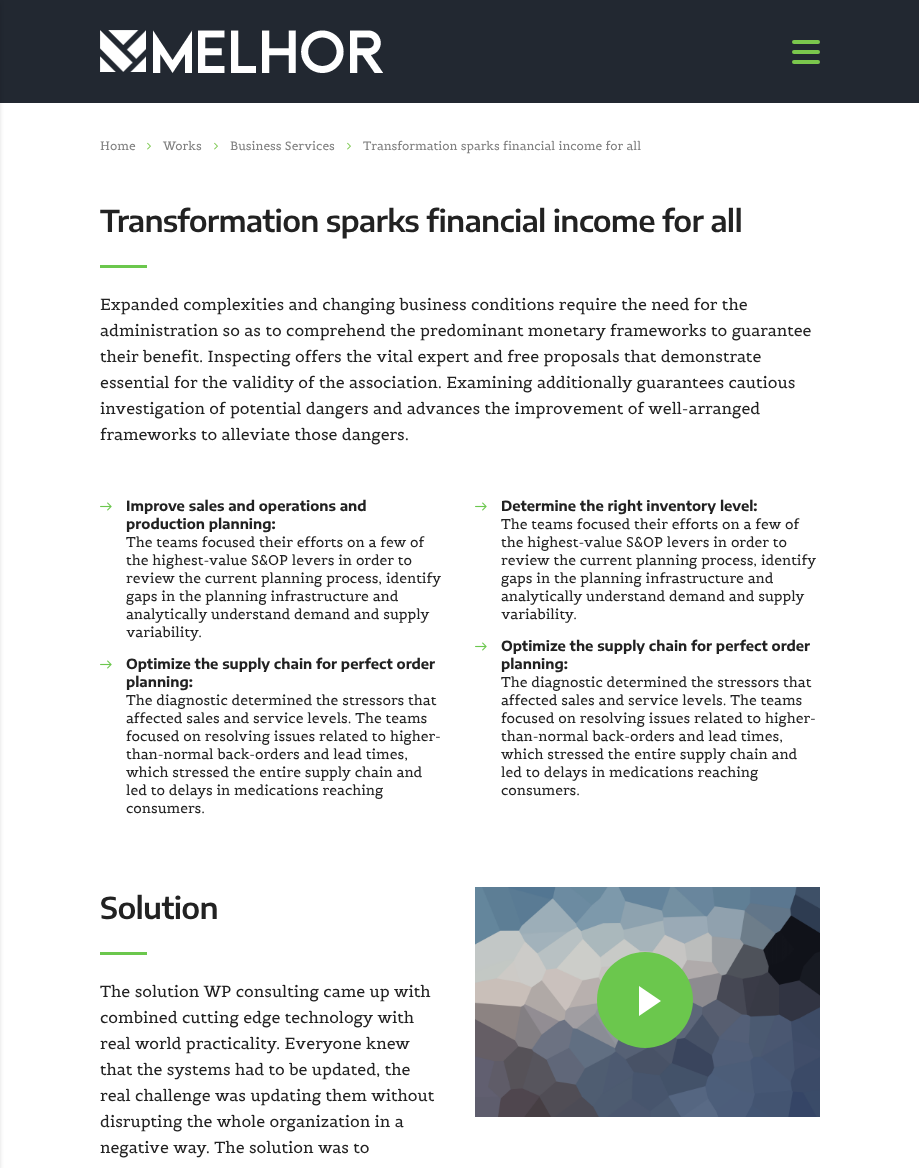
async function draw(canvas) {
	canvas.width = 919;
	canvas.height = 1168;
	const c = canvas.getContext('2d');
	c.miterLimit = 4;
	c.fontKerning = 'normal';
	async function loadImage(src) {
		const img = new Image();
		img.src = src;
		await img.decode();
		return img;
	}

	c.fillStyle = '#fff';
	c.fillRect(0, 0, 919, 1168);
	c.fillStyle = '#222831';
	c.fillRect(0, 0, 919, 103);
	c.drawImage(await loadImage('img1.png'), 100, 30, 283, 43);
	c.fillStyle = '#7bc74d';
	c.beginPath();
	c.roundRect(792, 40, 28, 4, 2);
	c.fill();
	c.beginPath();
	c.roundRect(792, 50, 28, 4, 2);
	c.fill();
	c.beginPath();
	c.roundRect(792, 60, 28, 4, 2);
	c.fill();
	c.fillStyle = '#00000033';
	c.filter = 'blur(2.5px)';
	c.beginPath();
	c.rect(-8, 3, 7, 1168);
	c.fill();
	c.filter = 'none';
	c.font = '12px Belgrano';
	c.fillStyle = '#808080';
	c.fillText('Home', 100, 150);
	c.drawImage(await loadImage('img2.png'), 147, 142, 4, 8);
	c.fillText('Works', 163, 150);
	c.drawImage(await loadImage('img2.png'), 214, 142, 4, 8);
	c.fillText('Business Services', 230, 150);
	c.drawImage(await loadImage('img2.png'), 347, 142, 4, 8);
	c.fillText('Transformation sparks financial income for all', 363, 150);
	c.letterSpacing = '-0.8px';
	c.font = '600 30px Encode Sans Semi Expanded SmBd';
	c.fillStyle = '#222';
	c.fillText('Transformation sparks financial income for all', 100, 232);
	c.fillStyle = '#6bc74d';
	c.fillRect(100, 265, 47, 3);
	c.letterSpacing = '0px';
	c.font = '16px Belgrano';
	c.fillStyle = '#222';
	for (const [text, x, y] of [
		['Expanded complexities and changing business conditions require the need for the', 100, 310],
		['administration so as to comprehend the predominant monetary frameworks to guarantee', 100, 336],
		['their benefit. Inspecting offers the vital expert and free proposals that demonstrate', 100, 362],
		['essential for the validity of the association. Examining additionally guarantees cautious', 100, 388],
		['investigation of potential dangers and advances the improvement of well-arranged', 100, 414],
		['frameworks to alleviate those dangers.', 100, 440],
	]) {
		c.fillText(text, x, y);
	}
	c.drawImage(await loadImage('img3.png'), 100, 502, 12, 9);
	c.font = 'bold 14px Encode Sans Semi Expanded';
	c.fillText('Improve sales and operations and', 126, 511);
	c.fillText('production planning:', 126, 529);
	c.font = '14px Belgrano';
	for (const [text, x, y] of [
		['The teams focused their efforts on a few of', 126, 547],
		['the highest-value S&OP levers in order to', 126, 565],
		['review the current planning process, identify', 126, 583],
		['gaps in the planning infrastructure and', 126, 601],
		['analytically understand demand and supply', 126, 619],
		['variability.', 126, 637],
	]) {
		c.fillText(text, x, y);
	}
	c.drawImage(await loadImage('img3.png'), 100, 660, 12, 9);
	c.font = 'bold 14px Encode Sans Semi Expanded';
	c.fillText('Optimize the supply chain for perfect order', 126, 669);
	c.fillText('planning:', 126, 687);
	c.font = '14px Belgrano';
	for (const [text, x, y] of [
		['The diagnostic determined the stressors that', 126, 705],
		['affected sales and service levels. The teams', 126, 723],
		['focused on resolving issues related to higher-', 126, 741],
		['than-normal back-orders and lead times,', 126, 759],
		['which stressed the entire supply chain and', 126, 777],
		['led to delays in medications reaching', 126, 795],
		['consumers.', 126, 813],
	]) {
		c.fillText(text, x, y);
	}
	c.drawImage(await loadImage('img3.png'), 475, 502, 12, 9);
	c.font = 'bold 14px Encode Sans Semi Expanded';
	c.fillText('Determine the right inventory level:', 501, 511);
	c.font = '14px Belgrano';
	for (const [text, x, y] of [
		['The teams focused their efforts on a few of', 501, 529],
		['the highest-value S&OP levers in order to', 501, 547],
		['review the current planning process, identify', 501, 565],
		['gaps in the planning infrastructure and', 501, 583],
		['analytically understand demand and supply', 501, 601],
		['variability.', 501, 619],
	]) {
		c.fillText(text, x, y);
	}
	c.drawImage(await loadImage('img3.png'), 475, 642, 12, 9);
	c.font = 'bold 14px Encode Sans Semi Expanded';
	c.fillText('Optimize the supply chain for perfect order', 501, 651);
	c.fillText('planning:', 501, 669);
	c.font = '14px Belgrano';
	for (const [text, x, y] of [
		['The diagnostic determined the stressors that', 501, 687],
		['affected sales and service levels. The teams', 501, 705],
		['focused on resolving issues related to higher-', 501, 723],
		['than-normal back-orders and lead times,', 501, 741],
		['which stressed the entire supply chain and', 501, 759],
		['led to delays in medications reaching', 501, 777],
		['consumers.', 501, 795],
	]) {
		c.fillText(text, x, y);
	}
	c.letterSpacing = '-0.8px';
	c.font = '600 30px Encode Sans Semi Expanded SmBd';
	c.fillText('Solution', 100, 919);
	c.fillStyle = '#6bc74d';
	c.fillRect(100, 952, 47, 3);
	c.letterSpacing = '0px';
	c.font = '16px Belgrano';
	c.fillStyle = '#222';
	for (const [text, x, y] of [
		['The solution WP consulting came up with', 100, 997],
		['combined cutting edge technology with', 100, 1023],
		['real world practicality. Everyone knew', 100, 1049],
		['that the systems had to be updated, the', 100, 1075],
		['real challenge was updating them without', 100, 1101],
		['disrupting the whole organization in a', 100, 1127],
		['negative way. The solution was to', 100, 1153],
	]) {
		c.fillText(text, x, y);
	}
	c.drawImage(await loadImage('img4.png'), 475, 887, 345, 230);
	c.fillStyle = '#6bc74d';
	c.beginPath();
	c.arc(645, 1000, 48, 0, 2 * Math.PI);
	c.fill();
	c.fillStyle = '#fff';
	c.beginPath();
	c.moveTo(639, 1016);
	c.lineTo(639, 986);
	c.lineTo(661, 1001);
	c.closePath();
	c.fill();
}

draw(document.querySelector('canvas'));
